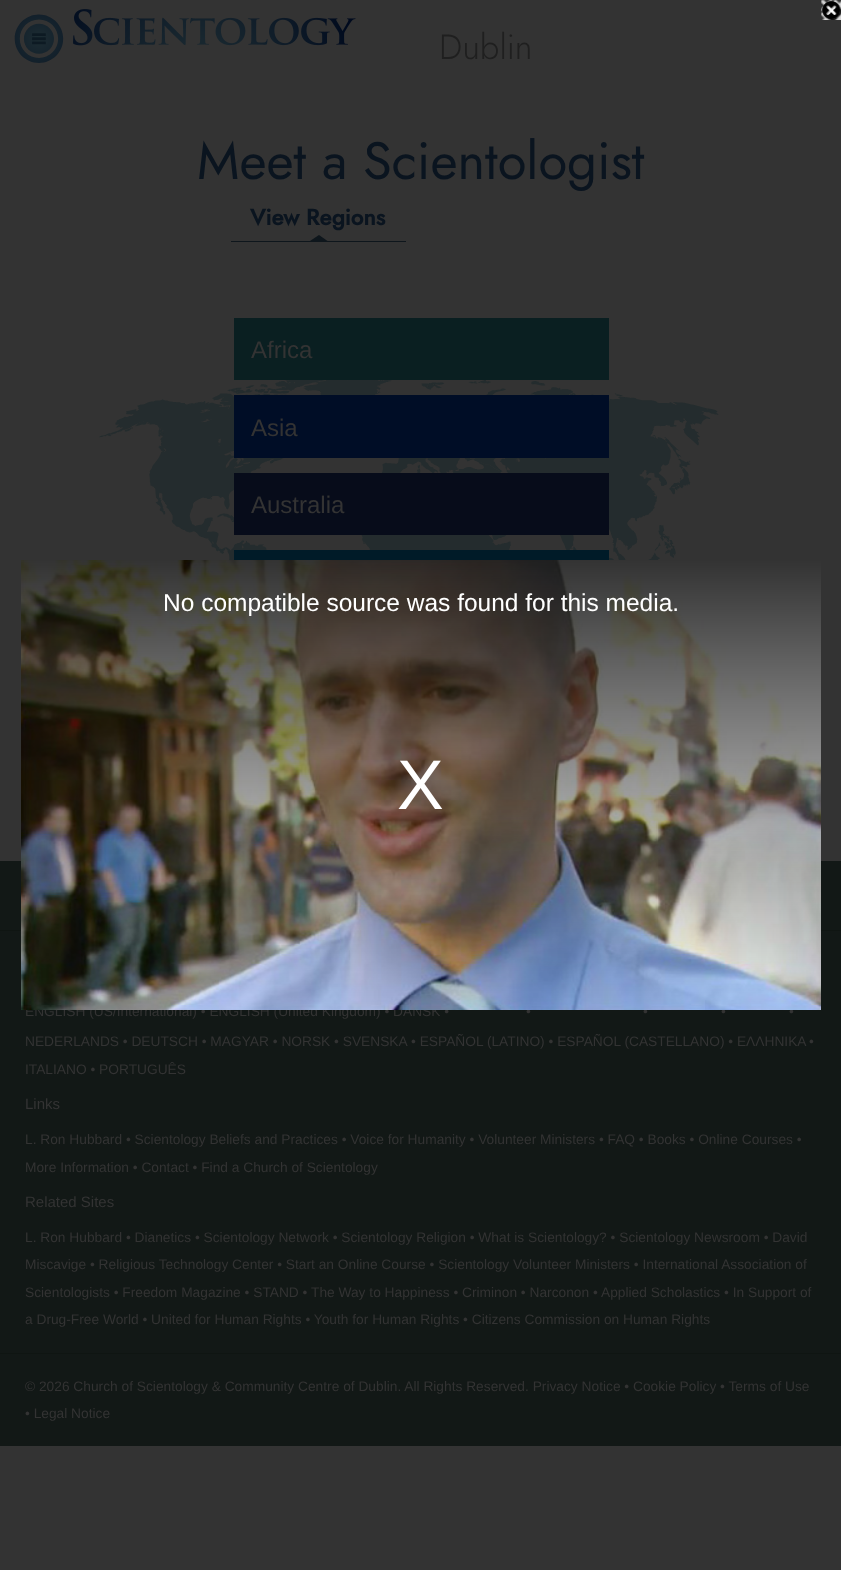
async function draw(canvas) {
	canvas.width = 841;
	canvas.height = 1570;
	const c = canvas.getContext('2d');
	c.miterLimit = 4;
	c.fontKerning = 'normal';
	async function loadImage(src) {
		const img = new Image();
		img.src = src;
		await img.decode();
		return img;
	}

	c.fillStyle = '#333';
	c.fillRect(0, 0, 841, 1570);
	c.drawImage(await loadImage('img1.png'), 14, 14, 50, 49);
	c.drawImage(await loadImage('img2.png'), 73, 9, 283, 37);
	c.font = '300 35px Jost';
	c.fillStyle = '#1f1f1f';
	c.fillText('Dublin', 439, 59);
	c.font = '52.5px Jost';
	c.fillStyle = '#0a141f';
	c.fillText('Meet a Scientologist', 197, 179);
	c.fillStyle = '#0e161c';
	c.fillRect(231, 241, 175, 1);
	c.font = 'bold 22.5px Jost';
	c.fillStyle = '#0a141f';
	c.fillText('View Regions', 250, 225);
	c.fillStyle = '#0e161c';
	c.beginPath();
	c.moveTo(327.5, 241);
	c.lineTo(310, 241);
	c.lineTo(319, 235);
	c.closePath();
	c.fill();
	c.fillStyle = '#0a1f21';
	c.fillRect(234, 318, 375, 62);
	c.font = '24px Liberation Sans';
	c.fillStyle = '#333';
	c.fillText('Africa', 251, 358);
	c.drawImage(await loadImage('img3.png'), 99, 380, 620, 180);
	c.fillStyle = '#000d26';
	c.fillRect(234, 395, 375, 63);
	c.fillStyle = '#333';
	c.fillText('Asia', 251, 436);
	c.fillStyle = '#070c1a';
	c.fillRect(234, 473, 375, 62);
	c.fillStyle = '#333';
	c.fillText('Australia', 251, 513);
	c.fillStyle = '#001b28';
	c.fillRect(234, 550, 375, 10);
	c.drawImage(await loadImage('img4.png'), 821, 0, 20, 20);
	c.drawImage(await loadImage('img5.png'), 821, 0, 20, 20);
	c.fillStyle = '#121816';
	c.fillRect(0, 861, 841, 585);
	c.fillStyle = '#0f1512';
	c.fillRect(0, 930, 841, 1);
	c.font = '13.75px Liberation Sans';
	c.fillStyle = '#333';
	for (const [text, x, y] of [
		['ENGLISH (US/International) • ENGLISH (United Kingdom) • DANSK •', 25, 1016],
		['•', 526, 1016],
		['•', 643, 1016],
		['•', 721, 1016],
		['•', 789, 1016],
	]) {
		c.fillText(text, x, y);
	}
	c.drawImage(await loadImage('img6.png'), 21, 560, 800, 450);
	c.font = '24.5px Liberation Sans';
	c.fillStyle = '#fff';
	c.fillText('No compatible source was found for this media.', 163, 611);
	c.font = '70px Liberation Sans';
	c.fillText('X', 397, 809);
	c.font = '13.75px Liberation Sans';
	c.fillStyle = '#333';
	for (const [text, x, y] of [
		['NEDERLANDS • DEUTSCH • MAGYAR • NORSK • SVENSKA', 25, 1046],
		['• ESPAÑOL (LATINO) • ESPAÑOL (CASTELLANO) • ΕΛΛΗΝΙΚA', 411, 1046],
		['•', 809, 1046],
		['ITALIANO • PORTUGUÊS', 25, 1074],
	]) {
		c.fillText(text, x, y);
	}
	c.font = '15px Liberation Sans';
	c.fillText('Links', 25, 1109);
	c.font = '13.75px Liberation Sans';
	c.fillText('L. Ron Hubbard • Scientology Beliefs and Practices • Voice for Humanity • Volunteer Ministers • FAQ • Books • Online Courses •', 25, 1144);
	c.fillText('More Information • Contact • Find a Church of Scientology', 25, 1172);
	c.font = '15px Liberation Sans';
	c.fillText('Related Sites', 25, 1207);
	c.font = '13.75px Liberation Sans';
	for (const [text, x, y] of [
		['L. Ron Hubbard • Dianetics • Scientology Network • Scientology Religion • What is Scientology? • Scientology Newsroom • David', 25, 1242],
		['Miscavige • Religious Technology Center • Start an Online Course • Scientology Volunteer Ministers • International Association of', 25, 1269],
		['Scientologists • Freedom Magazine • STAND • The Way to Happiness • Criminon • Narconon', 25, 1297],
		['•', 593, 1297],
		['Applied Scholastics • In Support of', 601, 1297],
		['a Drug-Free World • United for Human Rights • Youth for Human Rights • Citizens Commission on Human Rights', 25, 1324],
	]) {
		c.fillText(text, x, y);
	}
	c.fillStyle = '#0f1512';
	c.fillRect(0, 1353, 841, 1);
	c.fillStyle = '#333';
	c.fillText('© 2026 Church of Scientology & Community Centre of Dublin. All Rights Reserved. Privacy Notice • Cookie Policy • Terms of Use', 25, 1391);
	c.fillText('• Legal Notice', 25, 1418);
}

draw(document.querySelector('canvas'));
